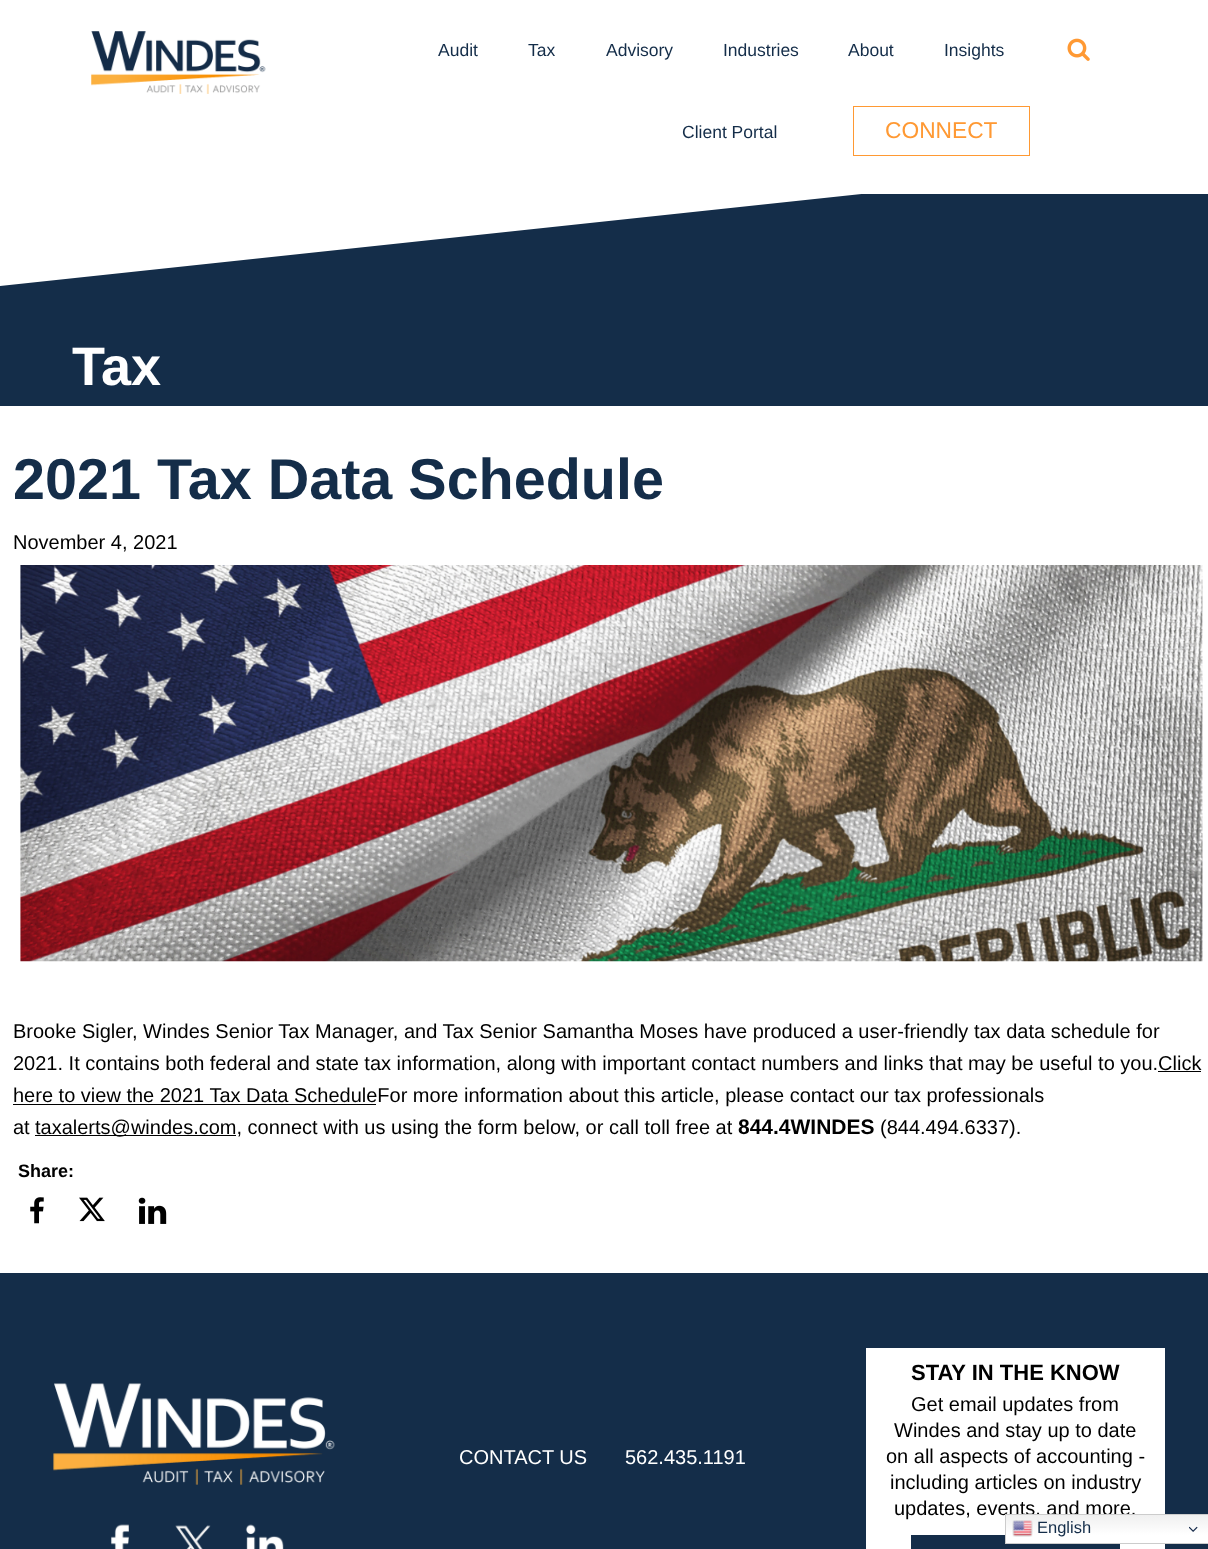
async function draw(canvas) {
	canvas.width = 1208;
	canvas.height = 1549;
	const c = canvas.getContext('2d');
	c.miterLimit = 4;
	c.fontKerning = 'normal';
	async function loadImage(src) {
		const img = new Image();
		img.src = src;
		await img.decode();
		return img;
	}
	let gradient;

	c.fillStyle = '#fff';
	c.fillRect(0, 0, 1208, 1549);
	c.fillStyle = '#142d49';
	c.beginPath();
	c.moveTo(0, 286);
	c.lineTo(0, 406);
	c.lineTo(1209, 406);
	c.lineTo(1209, 157);
	c.closePath();
	c.fill();
	c.fillStyle = '#fff';
	c.fillRect(862, 157, 346, 37);
	c.drawImage(await loadImage('img1.png'), 91, 31, 175, 63);
	c.font = '17.5px Liberation Sans';
	c.fillStyle = '#142d49';
	for (const [text, x, y] of [
		['Audit', 438, 56],
		['Tax', 528, 56],
		['Advisory', 606, 56],
		['Industries', 723, 56],
		['About', 848, 56],
		['Insights', 944, 56],
		['Client Portal', 682, 138],
	]) {
		c.fillText(text, x, y);
	}
	c.strokeStyle = '#f93';
	c.strokeRect(853.5, 106.5, 176, 49);
	c.font = '22.75px Liberation Sans';
	c.fillStyle = '#f93';
	c.fillText('CONNECT', 885, 138);
	c.drawImage(await loadImage('img2.png'), 1067, 38, 23, 23);
	c.font = 'bold 54px Liberation Sans';
	c.fillStyle = '#fff';
	c.fillText('Tax', 72, 385);
	c.font = 'bold 57.5px Liberation Sans';
	c.fillStyle = '#142d49';
	c.fillText('2021 Tax Data Schedule', 13, 499);
	c.font = '20px Liberation Sans';
	c.fillStyle = '#000';
	c.fillText('November 4, 2021', 13, 549);
	c.drawImage(await loadImage('img3.png'), 20, 565, 1183, 397);
	c.fillText('Brooke Sigler, Windes Senior Tax Manager, and Tax Senior Samantha Moses have produced a user-friendly tax data schedule for', 13, 1038);
	c.fillText('2021. It contains both federal and state tax information, along with important contact numbers and links that may be useful to you.Click', 13, 1070);
	c.fillRect(13, 1104, 363, 1);
	c.fillText('here to view the 2021 Tax Data ScheduleFor more information about this article, please contact our tax professionals', 13, 1102);
	c.fillRect(1158, 1071, 43, 1);
	c.fillText('at', 13, 1134);
	c.fillRect(35, 1135, 201, 1);
	c.fillText('taxalerts@windes.com, connect with us using the form below, or call toll free at', 35, 1134);
	c.font = 'bold 21px Liberation Sans';
	c.fillText('844.4WINDES', 738, 1134);
	c.font = '20px Liberation Sans';
	c.fillText('(844.494.6337).', 880, 1134);
	c.font = 'bold 18px Liberation Sans';
	c.fillText('Share:', 18, 1177);
	c.drawImage(await loadImage('img4.png'), 30, 1197, 14, 27);
	c.drawImage(await loadImage('img5.png'), 79, 1197, 26, 25);
	c.drawImage(await loadImage('img6.png'), 138, 1197, 29, 27);
	c.fillStyle = '#142d49';
	c.fillRect(0, 1273, 1208, 276);
	c.drawImage(await loadImage('img7.png'), 53, 1383, 282, 102);
	c.drawImage(await loadImage('img8.png'), 110, 1524, 19, 25);
	c.drawImage(await loadImage('img9.png'), 175, 1525, 36, 24);
	c.drawImage(await loadImage('img10.png'), 245, 1524, 39, 25);
	c.font = '20px Liberation Sans';
	c.fillStyle = '#fff';
	c.fillText('CONTACT US', 459, 1464);
	c.fillText('562.435.1191', 625, 1464);
	c.fillRect(866, 1348, 299, 201);
	c.font = 'bold 22px Liberation Sans';
	c.fillStyle = '#000';
	c.fillText('STAY IN THE KNOW', 911, 1380);
	c.font = '20px Liberation Sans';
	for (const [text, x, y] of [
		['Get email updates from', 911, 1411],
		['Windes and stay up to date', 894, 1437],
		['on all aspects of accounting -', 886, 1463],
		['including articles on industry', 890, 1489],
		['updates, events, and more.', 894, 1515],
	]) {
		c.fillText(text, x, y);
	}
	c.fillStyle = '#142d49';
	c.fillRect(911, 1535, 209, 14);
	gradient = c.createLinearGradient(1107, 1514, 1107, 1544);
	gradient.addColorStop(0, '#efefef');
	gradient.addColorStop(0.7, '#fff');
	c.fillStyle = gradient;
	c.fillRect(1006, 1515, 202, 28);
	c.strokeStyle = '#ccc';
	c.strokeRect(1005.5, 1514.5, 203, 29);
	c.drawImage(await loadImage('img11.png'), 1012, 1520, 21, 17);
	c.font = '16.5px Liberation Sans';
	c.fillStyle = '#142d49';
	c.fillText('English', 1037, 1533);
	c.drawImage(await loadImage('img12.png'), 1189, 1526, 9, 6);
}

draw(document.querySelector('canvas'));
